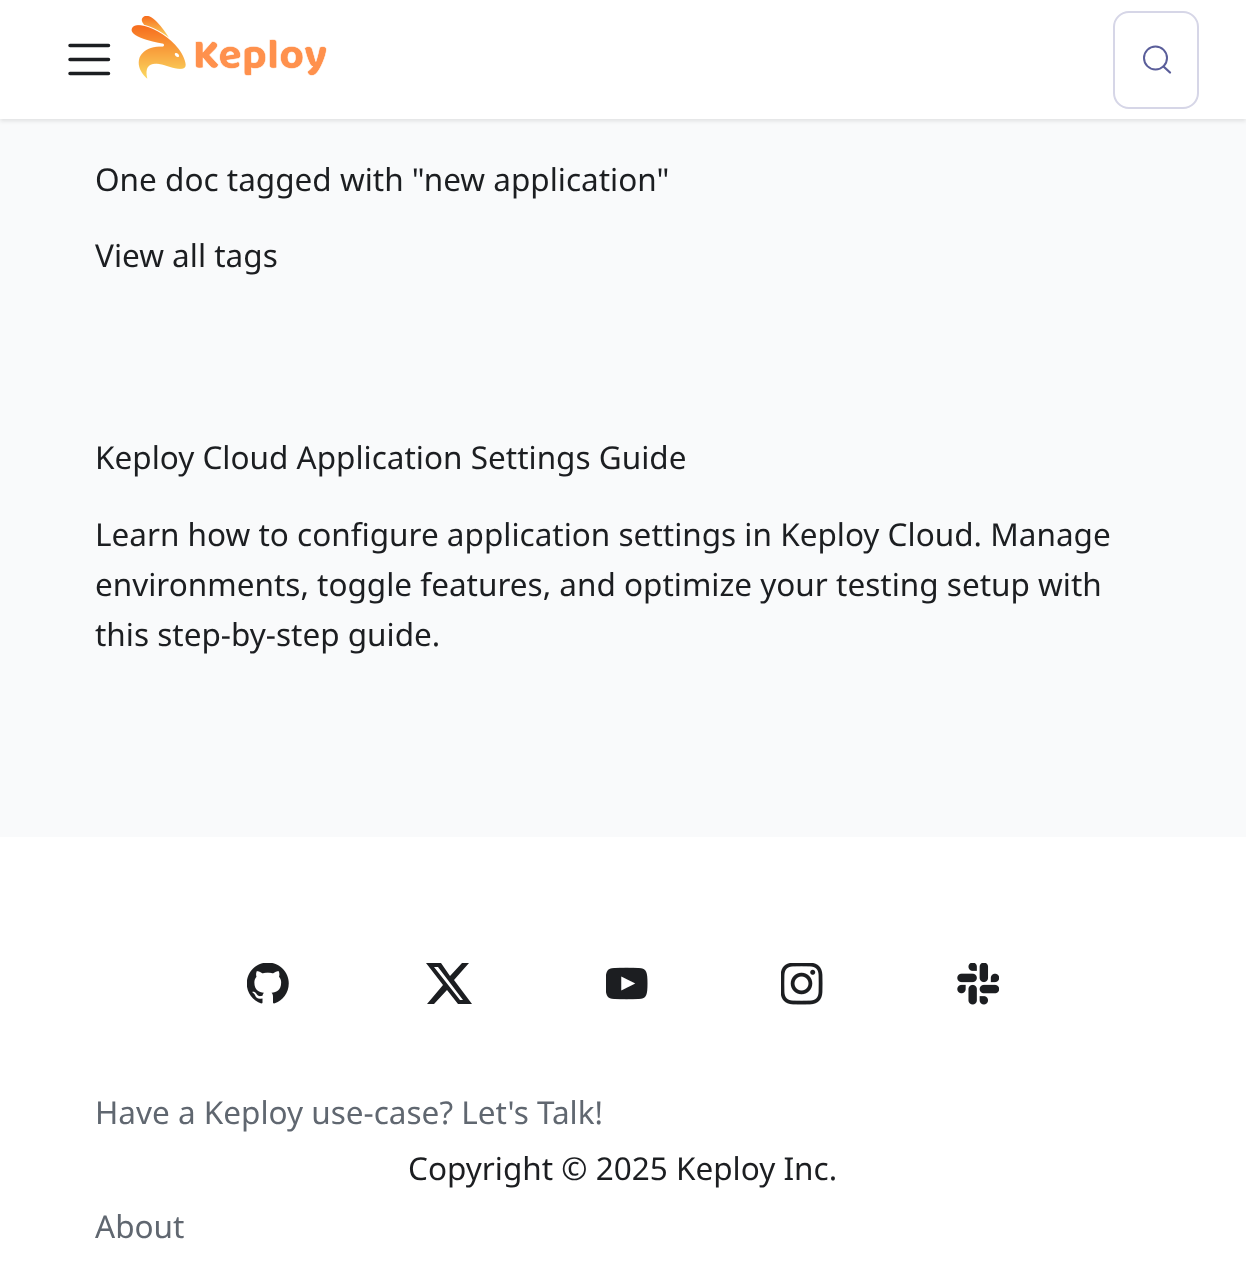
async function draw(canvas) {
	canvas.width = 1246;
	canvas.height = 1288;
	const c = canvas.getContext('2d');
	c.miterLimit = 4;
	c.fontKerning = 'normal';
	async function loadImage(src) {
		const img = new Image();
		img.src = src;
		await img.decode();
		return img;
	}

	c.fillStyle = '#f9fafb';
	c.fillRect(0, 0, 1246, 1288);
	c.fillStyle = '#0000001a';
	c.filter = 'blur(2px)';
	c.beginPath();
	c.rect(0, 2, 1246, 119);
	c.fill();
	c.filter = 'none';
	c.fillStyle = '#fff';
	c.fillRect(0, 0, 1246, 119);
	c.beginPath();
	c.moveTo(70, 45.5);
	c.lineTo(108.5, 45.5);
	c.moveTo(70, 59.5);
	c.lineTo(108.5, 59.5);
	c.moveTo(70, 73.5);
	c.lineTo(108.5, 73.5);
	c.strokeStyle = '#1c1e21';
	c.lineWidth = 3.5;
	c.lineCap = 'round';
	c.stroke();
	c.drawImage(await loadImage('img1.png'), 131, 16, 196, 63);
	c.beginPath();
	c.roundRect(1114, 12, 84, 96, 15);
	c.strokeStyle = '#d6d6e7';
	c.lineWidth = 2;
	c.stroke();
	c.beginPath();
	c.arc(1155.5, 58, 11.5, 0, 2 * Math.PI);
	c.strokeStyle = '#5a5e9a';
	c.stroke();
	c.beginPath();
	c.moveTo(1170, 72.5);
	c.lineTo(1163.5, 66.5);
	c.lineWidth = 2.3;
	c.lineJoin = 'round';
	c.stroke();
	c.font = '31.5px Noto Sans';
	c.fillStyle = '#1c1e21';
	for (const [text, x, y] of [
		['One doc tagged with "new application"', 95, 191],
		['View all tags', 95, 267],
		['Keploy Cloud Application Settings Guide', 95, 469],
		['Learn how to configure application settings in Keploy Cloud. Manage', 95, 546],
		['environments, toggle features, and optimize your testing setup with', 95, 596],
		['this step-by-step guide.', 95, 646],
	]) {
		c.fillText(text, x, y);
	}
	c.fillStyle = '#fff';
	c.fillRect(0, 837, 1246, 451);
	c.drawImage(await loadImage('img2.png'), 247, 963, 42, 41);
	c.fillStyle = '#1c1e21';
	c.beginPath();
	c.moveTo(462, 963);
	c.lineTo(469, 963);
	c.lineTo(454, 980);
	c.lineTo(472, 1004);
	c.lineTo(458, 1004);
	c.lineTo(447, 990);
	c.lineTo(434, 1004);
	c.lineTo(427, 1004);
	c.lineTo(443, 985);
	c.lineTo(426, 963);
	c.lineTo(441, 963);
	c.lineTo(450, 976);
	c.closePath();
	c.moveTo(460, 1000);
	c.lineTo(463, 1000);
	c.lineTo(438, 967);
	c.lineTo(434, 967);
	c.closePath();
	c.fill();
	c.drawImage(await loadImage('img3.png'), 606, 967, 42, 33);
	c.drawImage(await loadImage('img4.png'), 781, 963, 42, 42);
	c.drawImage(await loadImage('img5.png'), 957, 963, 42, 42);
	c.fillStyle = '#606770';
	c.fillText('Have a Keploy use-case? Let\'s Talk!', 95, 1124);
	c.fillStyle = '#1c1e21';
	c.fillText('Copyright © 2025 Keploy Inc.', 408, 1180);
	c.fillStyle = '#606770';
	c.fillText('About', 95, 1238);
}

draw(document.querySelector('canvas'));
